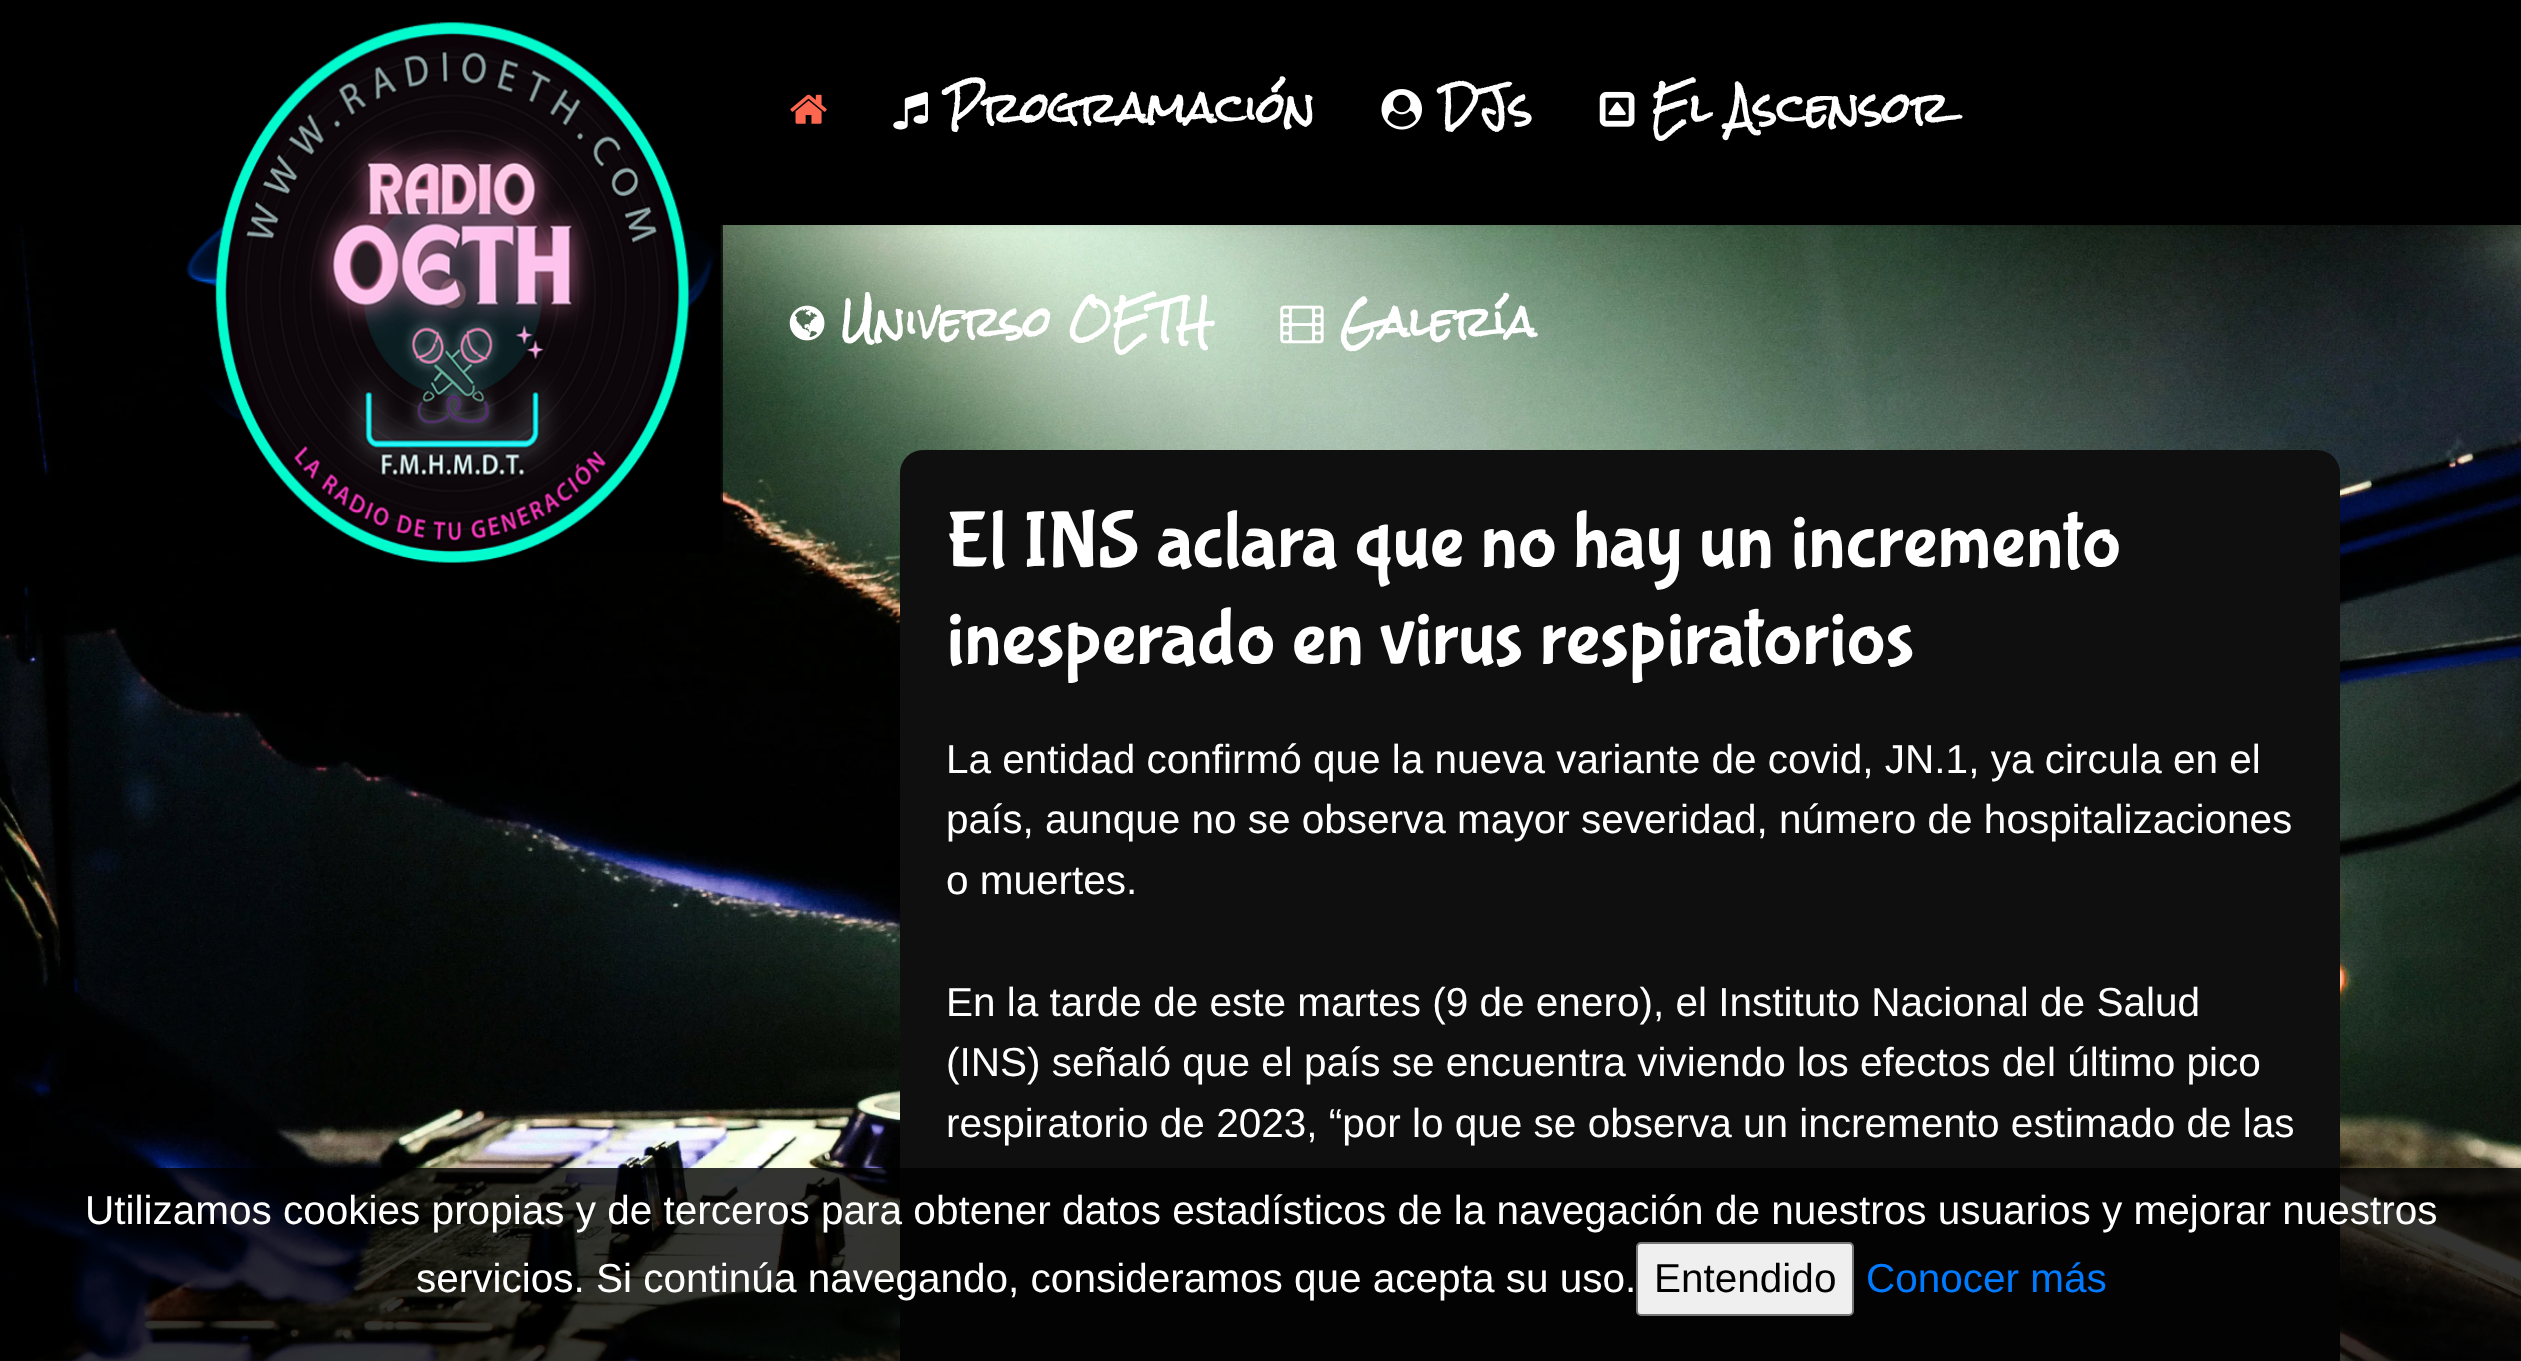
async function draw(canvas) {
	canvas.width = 2521;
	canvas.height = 1361;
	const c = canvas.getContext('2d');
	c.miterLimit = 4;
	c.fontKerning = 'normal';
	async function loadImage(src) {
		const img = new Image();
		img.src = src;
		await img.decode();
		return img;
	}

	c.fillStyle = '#fff';
	c.fillRect(0, 0, 2521, 1361);
	c.drawImage(await loadImage('img1.png'), 0, 225, 2521, 1136);
	c.fillStyle = '#0000001a';
	c.filter = 'blur(4.5px)';
	c.beginPath();
	c.rect(0, 0, 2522, 225);
	c.fill();
	c.filter = 'none';
	c.fillStyle = '#000';
	c.fillRect(0, 0, 2521, 225);
	c.drawImage(await loadImage('img2.png'), 185, 125, 538, 428);
	c.drawImage(await loadImage('img3.png'), 215, 22, 474, 541);
	c.drawImage(await loadImage('img4.png'), 790, 94, 37, 30);
	c.drawImage(await loadImage('img5.png'), 893, 91, 35, 39);
	c.font = 'bold 40.5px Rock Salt';
	c.fillStyle = '#fff';
	c.fillText('Programación', 945, 124);
	c.drawImage(await loadImage('img6.png'), 1381, 89, 41, 41);
	c.fillText('DJs', 1440, 124);
	c.drawImage(await loadImage('img7.png'), 1599, 91, 36, 36);
	c.fillText('El Ascensor', 1651, 124);
	c.drawImage(await loadImage('img8.png'), 789, 305, 36, 36);
	c.fillText('Universo OETH', 840, 338);
	c.drawImage(await loadImage('img9.png'), 1280, 305, 44, 39);
	c.fillText('Galería', 1340, 338);
	c.fillStyle = '#0f0f0f';
	c.beginPath();
	c.roundRect(900, 450, 1440, 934, 23);
	c.fill();
	c.font = '81px Bubblegum Sans';
	c.fillStyle = '#fff';
	c.fillText('El INS aclara que no hay un incremento', 946, 565);
	c.fillText('inesperado en virus respiratorios', 946, 662);
	c.font = '40.5px Liberation Sans';
	for (const [text, x, y] of [
		['La entidad confirmó que la nueva variante de covid, JN.1, ya circula en el', 946, 773],
		['país, aunque no se observa mayor severidad, número de hospitalizaciones', 946, 833],
		['o muertes.', 946, 894],
		['En la tarde de este martes (9 de enero), el Instituto Nacional de Salud', 946, 1016],
		['(INS) señaló que el país se encuentra viviendo los efectos del último pico', 946, 1076],
		['respiratorio de 2023, “por lo que se observa un incremento estimado de las', 946, 1137],
	]) {
		c.fillText(text, x, y);
	}
	c.fillStyle = '#000000cc';
	c.fillRect(0, 1168, 2521, 193);
	c.fillStyle = '#fff';
	c.fillText('Utilizamos cookies propias y de terceros para obtener datos estadísticos de la navegación de nuestros usuarios y mejorar nuestros', 85, 1224);
	c.fillText('servicios. Si continúa navegando, consideramos que acepta su uso.', 416, 1292);
	c.fillStyle = '#efefef';
	c.beginPath();
	c.roundRect(1637, 1243, 216, 72, 4);
	c.fill();
	c.strokeStyle = '#767676';
	c.lineWidth = 2;
	c.stroke();
	c.fillStyle = '#000';
	c.fillText('Entendido', 1654, 1292);
	c.fillStyle = '#007bff';
	c.fillText('Conocer más', 1866, 1292);
}

draw(document.querySelector('canvas'));
